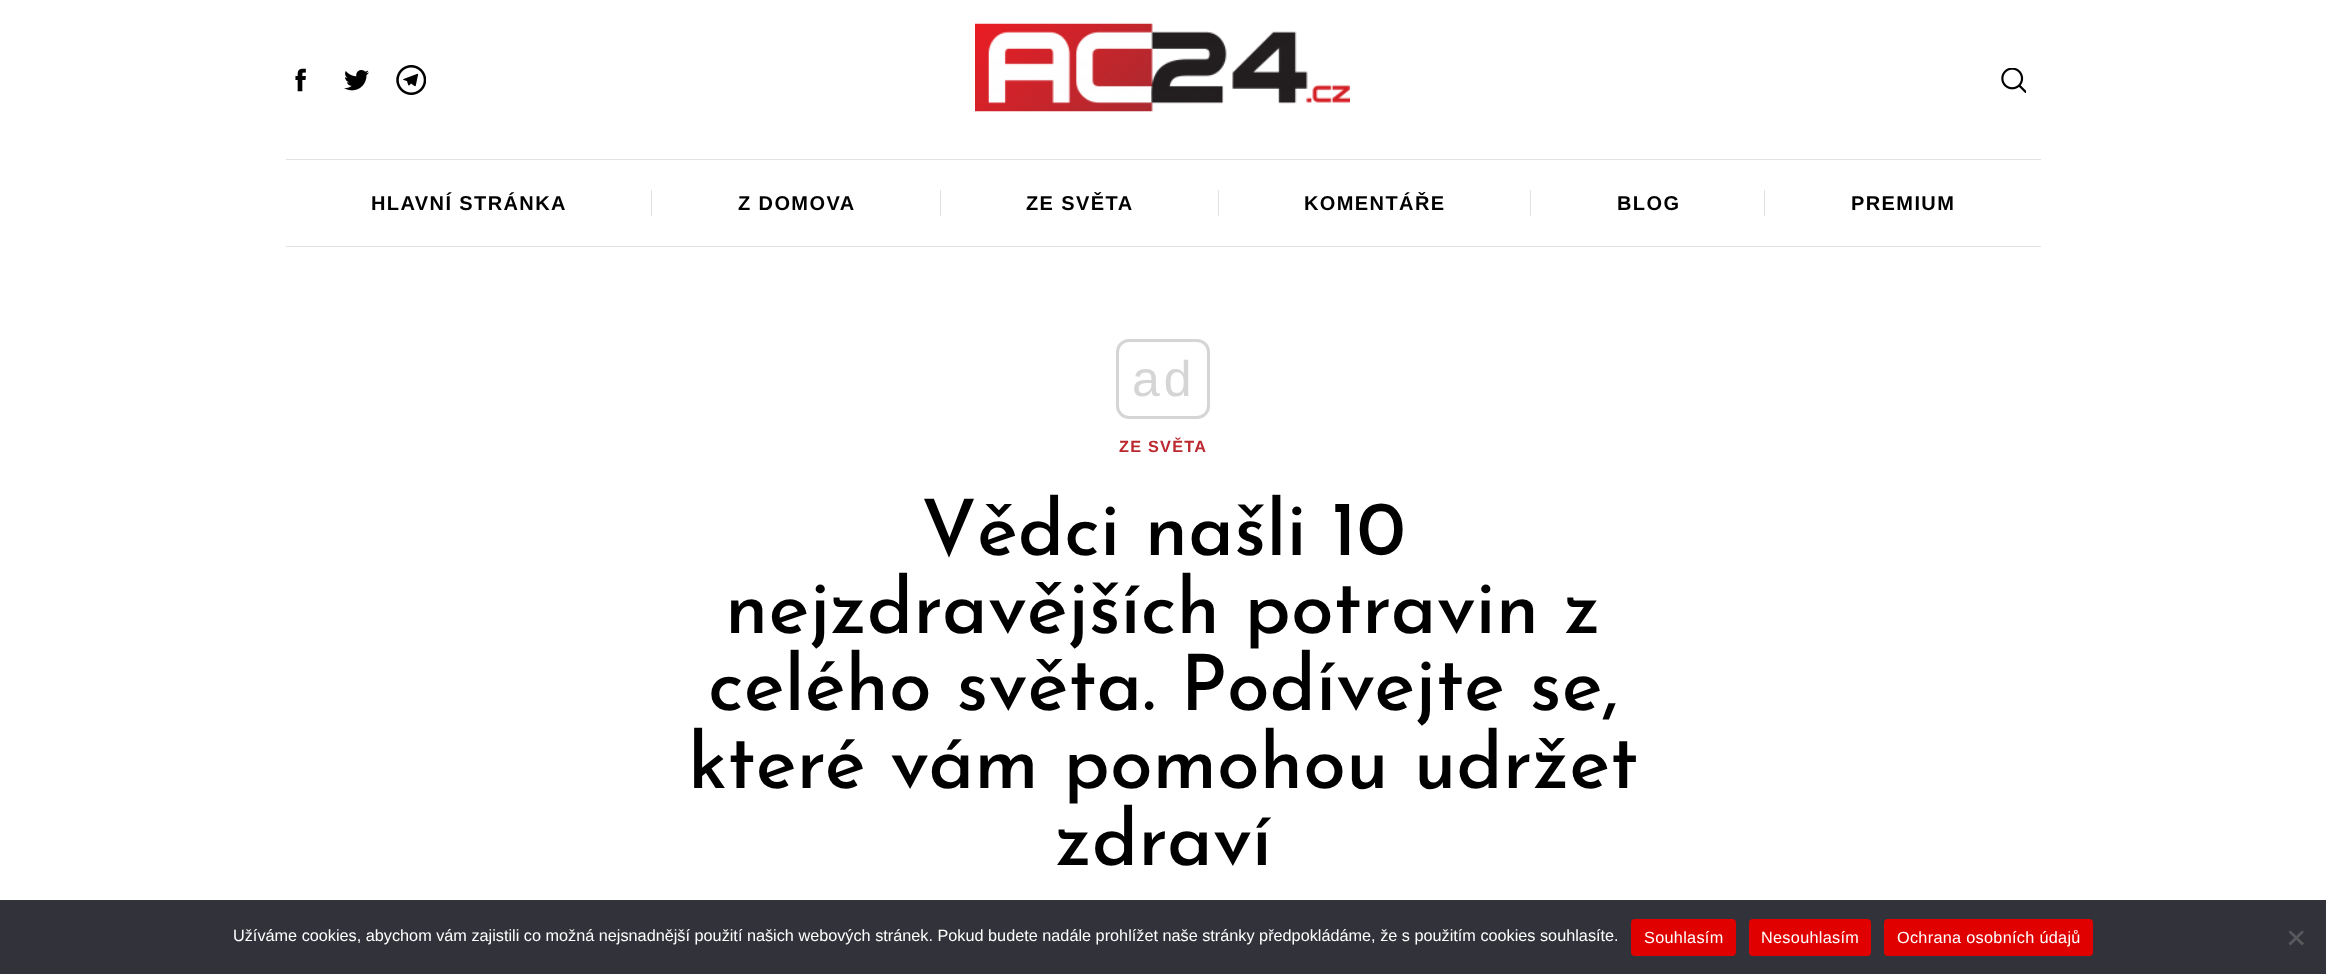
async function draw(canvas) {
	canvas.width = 2326;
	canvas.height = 974;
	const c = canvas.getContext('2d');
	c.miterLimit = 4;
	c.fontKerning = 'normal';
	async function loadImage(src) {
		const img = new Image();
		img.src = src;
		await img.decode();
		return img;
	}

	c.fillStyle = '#fff';
	c.fillRect(0, 0, 2326, 974);
	c.drawImage(await loadImage('img1.png'), 295, 68, 11, 24);
	c.drawImage(await loadImage('img2.png'), 344, 70, 25, 21);
	c.drawImage(await loadImage('img3.png'), 396, 65, 30, 30);
	c.drawImage(await loadImage('img4.png'), 975, 23, 375, 89);
	c.drawImage(await loadImage('img5.png'), 2001, 68, 25, 25);
	c.fillStyle = '#e2e2e2';
	c.fillRect(286, 159, 1755, 1);
	c.letterSpacing = '1.4px';
	c.font = 'bold 20px Liberation Sans';
	c.fillStyle = '#000';
	c.fillText('HLAVNÍ STRÁNKA', 371, 210);
	c.fillStyle = '#e2e2e2';
	c.fillRect(651, 190, 1, 26);
	c.fillStyle = '#000';
	c.fillText('Z DOMOVA', 738, 210);
	c.fillStyle = '#e2e2e2';
	c.fillRect(940, 190, 1, 26);
	c.fillStyle = '#000';
	c.fillText('ZE SVĚTA', 1026, 210);
	c.fillStyle = '#e2e2e2';
	c.fillRect(1218, 190, 1, 26);
	c.fillStyle = '#000';
	c.fillText('KOMENTÁŘE', 1304, 210);
	c.fillStyle = '#e2e2e2';
	c.fillRect(1530, 190, 1, 26);
	c.fillStyle = '#000';
	c.fillText('BLOG', 1617, 210);
	c.fillStyle = '#e2e2e2';
	c.fillRect(1764, 190, 1, 26);
	c.fillStyle = '#000';
	c.fillText('PREMIUM', 1851, 210);
	c.fillStyle = '#e2e2e2';
	c.fillRect(286, 246, 1755, 1);
	c.beginPath();
	c.roundRect(1117.5, 340.5, 91, 77, 11.5);
	c.strokeStyle = '#d5d5d5';
	c.lineWidth = 3;
	c.stroke();
	c.letterSpacing = '4px';
	c.font = '50px Liberation Sans';
	c.fillStyle = '#d5d5d5';
	c.fillText('ad', 1132, 396);
	c.letterSpacing = '1.25px';
	c.font = 'bold 16.25px Liberation Sans';
	c.fillStyle = '#bc282f';
	c.fillText('ZE SVĚTA', 1119, 452);
	c.letterSpacing = '0px';
	c.font = '100 77.5px Josefin Sans';
	c.fillStyle = '#000';
	for (const [text, x, y] of [
		['Vědci našli 10', 921, 555],
		['nejzdravějších potravin z', 725, 633],
		['celého světa. Podívejte se,', 708, 710],
		['které vám pomohou udržet', 688, 788],
		['zdraví', 1055, 865],
	]) {
		c.fillText(text, x, y);
	}
	c.fillStyle = '#32323a';
	c.fillRect(0, 900, 2326, 74);
	c.font = '16.25px Liberation Sans';
	c.fillStyle = '#fff';
	c.fillText('Užíváme cookies, abychom vám zajistili co možná nejsnadnější použití našich webových stránek. Pokud budete nadále prohlížet naše stránky předpokládáme, že s použitím cookies souhlasíte.', 233, 941);
	c.fillStyle = '#e00000';
	c.beginPath();
	c.roundRect(1631, 919, 105, 37, 4);
	c.fill();
	c.letterSpacing = '0.3px';
	c.fillStyle = '#fff';
	c.fillText('Souhlasím', 1644, 943);
	c.fillStyle = '#e00000';
	c.beginPath();
	c.roundRect(1749, 919, 122, 37, 4);
	c.fill();
	c.fillStyle = '#fff';
	c.fillText('Nesouhlasím', 1761, 943);
	c.fillStyle = '#e00000';
	c.beginPath();
	c.roundRect(1884, 919, 209, 37, 4);
	c.fill();
	c.fillStyle = '#fff';
	c.fillText('Ochrana osobních údajů', 1897, 943);
	c.fillStyle = '#59595d';
	c.beginPath();
	c.moveTo(2302, 930.5);
	c.lineTo(2304, 932);
	c.lineTo(2290.5, 945.5);
	c.lineTo(2288.5, 943.5);
	c.closePath();
	c.fill();
	c.beginPath();
	c.moveTo(2288.5, 932);
	c.lineTo(2290.5, 930.5);
	c.lineTo(2304, 943.5);
	c.lineTo(2302, 945.5);
	c.closePath();
	c.fill();
}

draw(document.querySelector('canvas'));
